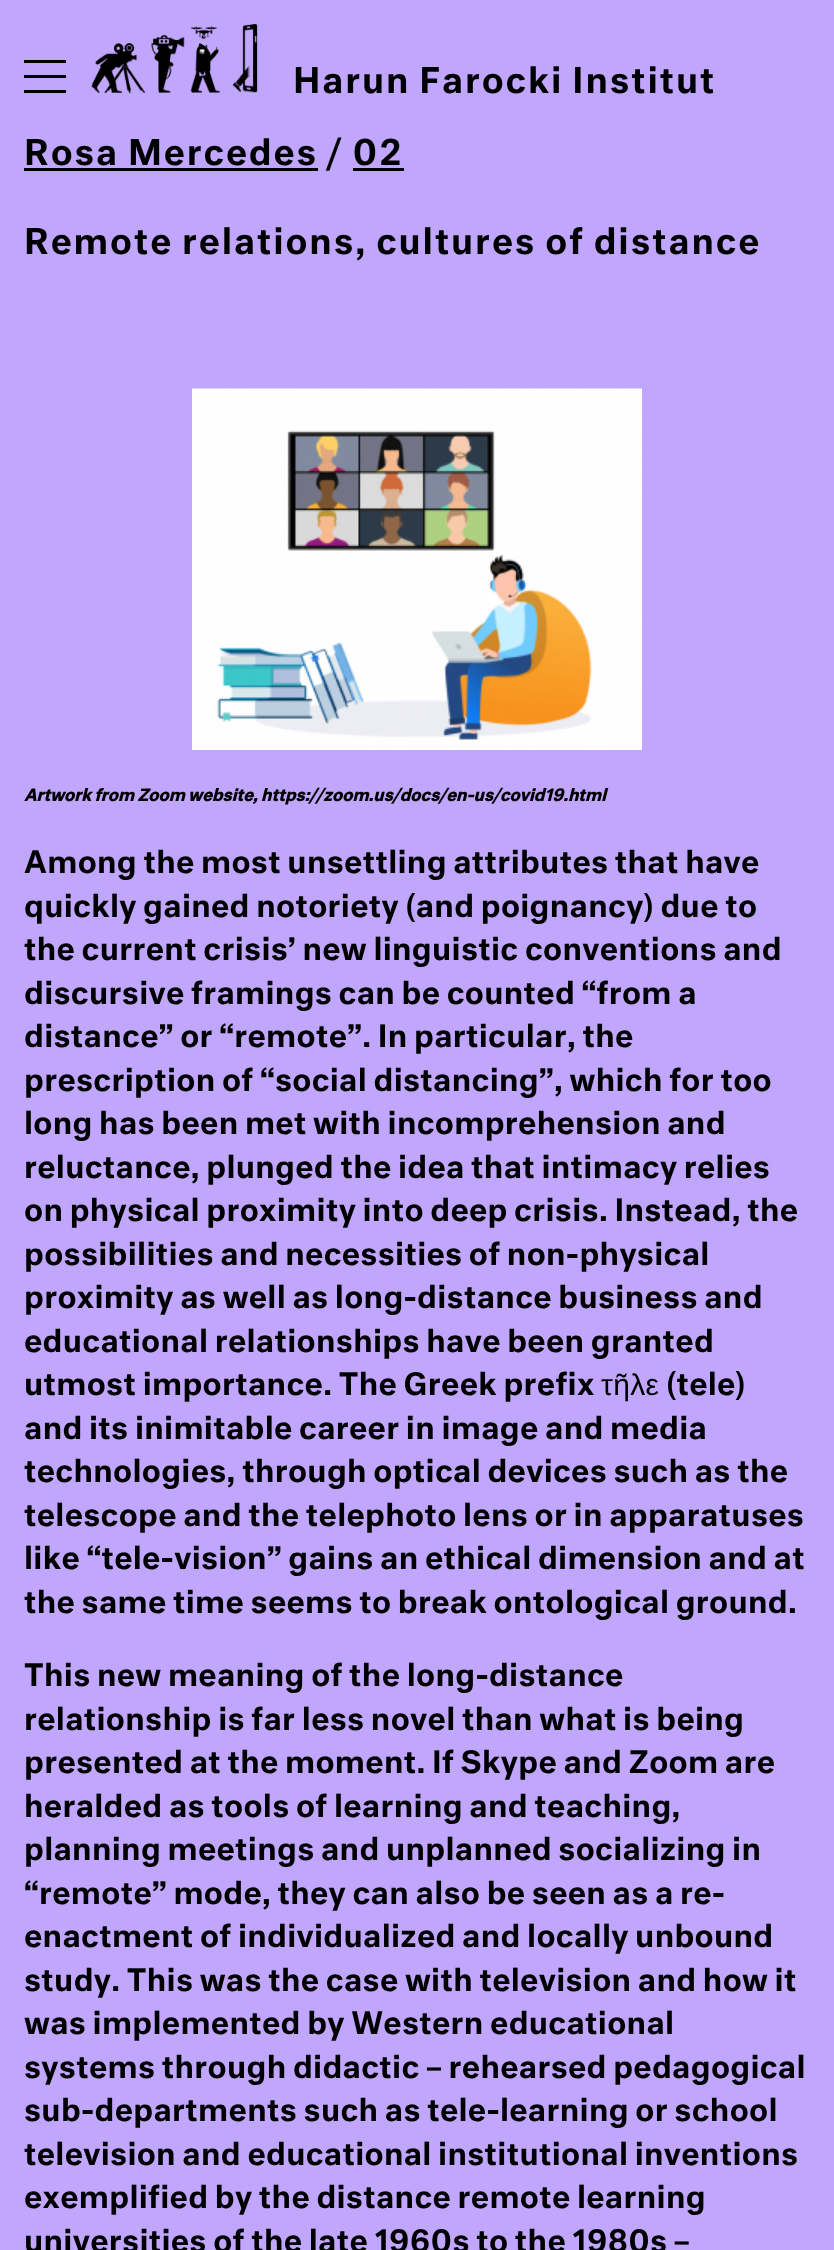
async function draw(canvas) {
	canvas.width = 834;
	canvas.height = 2250;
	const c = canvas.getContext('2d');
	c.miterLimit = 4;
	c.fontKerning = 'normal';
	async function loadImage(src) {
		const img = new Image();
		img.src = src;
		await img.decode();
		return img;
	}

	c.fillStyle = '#c0a6fc';
	c.fillRect(0, 0, 834, 2250);
	for (const [x, y, w, h, color] of [
		[24, 60, 42, 3, '#000'],
		[24, 75, 42, 3, '#000'],
		[24, 90, 42, 3, '#000'],
	]) {
		c.fillStyle = color;
		c.fillRect(x, y, w, h);
	}
	c.drawImage(await loadImage('img1.png'), 91, 24, 167, 69);
	c.letterSpacing = '1.9px';
	c.font = '500 34.5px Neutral';
	c.fillText('Harun Farocki Institut', 293, 93);
	c.fillRect(24, 168, 294, 3);
	c.fillText('Rosa Mercedes / 02', 24, 165);
	c.fillRect(353, 168, 51, 3);
	c.fillText('Remote relations, cultures of distance', 24, 254);
	c.drawImage(await loadImage('img2.png'), 192, 388, 450, 362);
	c.letterSpacing = '0px';
	c.font = 'italic bold 16.1px Neutral';
	c.fillText('Artwork from Zoom website, https://zoom.us/docs/en-us/covid19.html', 24, 801);
	c.letterSpacing = '0.3px';
	c.font = '500 30px Neutral';
	for (const [text, x, y] of [
		['Among the most unsettling attributes that have', 24, 873],
		['quickly gained notoriety (and poignancy) due to', 24, 917],
		['the current crisis’ new linguistic conventions and', 24, 960],
		['discursive framings can be counted “from a', 24, 1004],
		['distance” or “remote”. In particular, the', 24, 1047],
		['prescription of “social distancing”, which for too', 24, 1091],
		['long has been met with incomprehension and', 24, 1134],
		['reluctance, plunged the idea that intimacy relies', 24, 1178],
		['on physical proximity into deep crisis. Instead, the', 24, 1221],
		['possibilities and necessities of non-physical', 24, 1265],
		['proximity as well as long-distance business and', 24, 1308],
		['educational relationships have been granted', 24, 1352],
		['utmost importance. The Greek prefix', 24, 1395],
	]) {
		c.fillText(text, x, y);
	}
	c.font = '30px Liberation Sans';
	c.fillText('τῆλε', 601, 1395);
	c.font = '500 30px Neutral';
	for (const [text, x, y] of [
		['(tele)', 666, 1395],
		['and its inimitable career in image and media', 24, 1439],
		['technologies, through optical devices such as the', 24, 1482],
		['telescope and the telephoto lens or in apparatuses', 24, 1526],
		['like “tele-vision” gains an ethical dimension and at', 24, 1569],
		['the same time seems to break ontological ground.', 24, 1613],
		['This new meaning of the long-distance', 24, 1686],
		['relationship is far less novel than what is being', 24, 1730],
		['presented at the moment. If Skype and Zoom are', 24, 1773],
		['heralded as tools of learning and teaching,', 24, 1817],
		['planning meetings and unplanned socializing in', 24, 1860],
		['“remote” mode, they can also be seen as a re-', 24, 1904],
		['enactment of individualized and locally unbound', 24, 1947],
		['study. This was the case with television and how it', 24, 1991],
		['was implemented by Western educational', 24, 2034],
		['systems through didactic – rehearsed pedagogical', 24, 2078],
		['sub-departments such as tele-learning or school', 24, 2121],
		['television and educational institutional inventions', 24, 2165],
		['exemplified by the distance remote learning', 24, 2208],
		['universities of the late 1960s to the 1980s –', 24, 2252],
	]) {
		c.fillText(text, x, y);
	}
}

draw(document.querySelector('canvas'));
